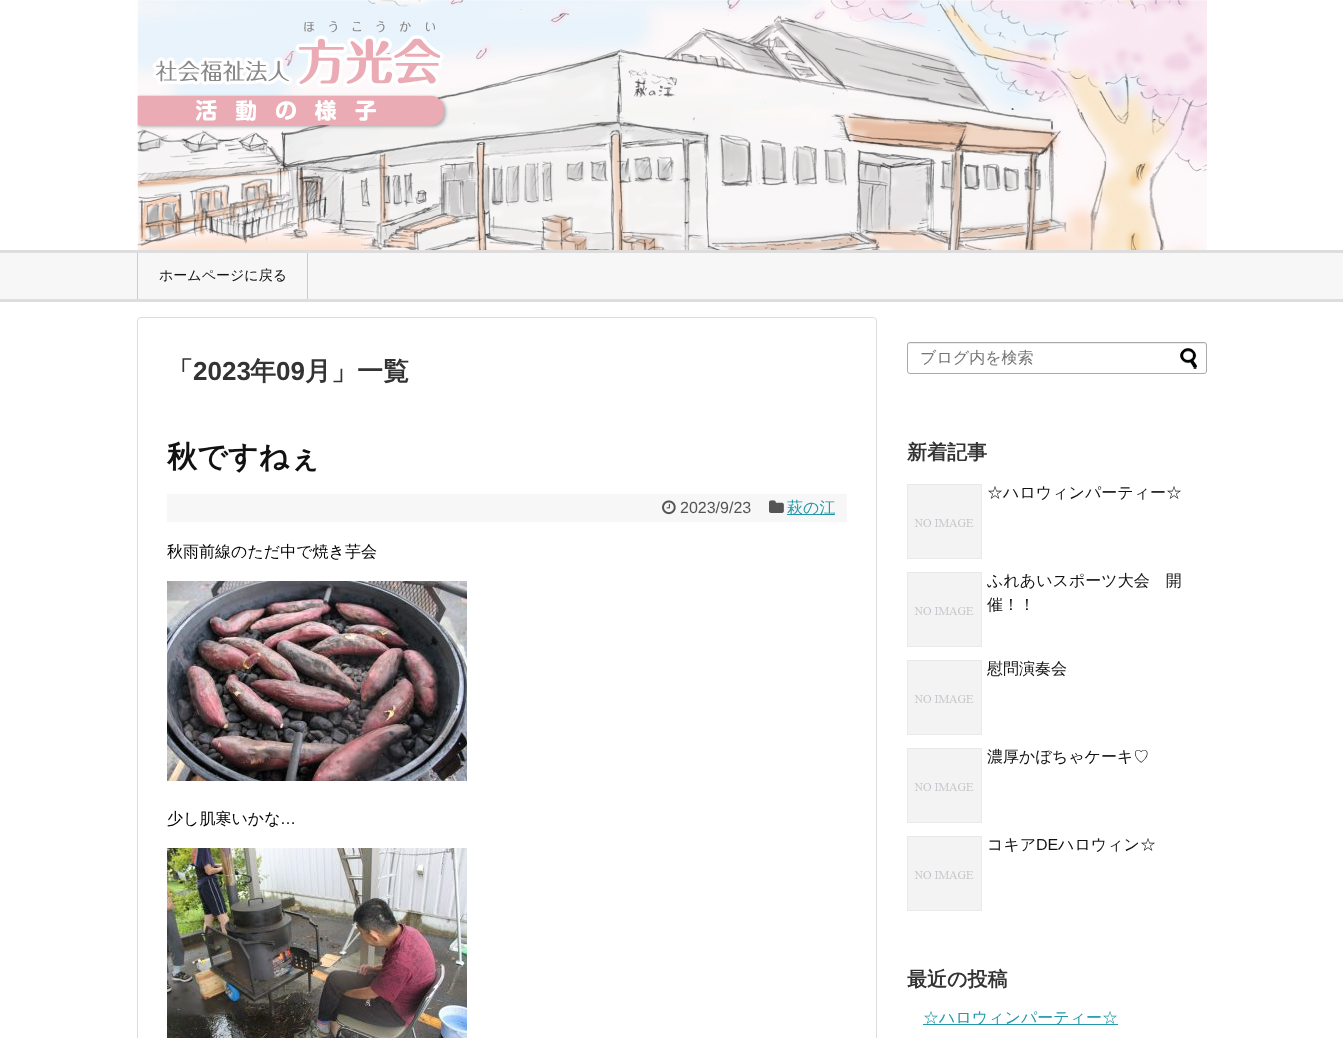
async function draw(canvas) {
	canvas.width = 1343;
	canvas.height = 1038;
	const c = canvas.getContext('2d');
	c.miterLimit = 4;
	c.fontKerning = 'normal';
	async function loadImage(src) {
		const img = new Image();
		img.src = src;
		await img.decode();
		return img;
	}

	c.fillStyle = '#fff';
	c.fillRect(0, 0, 1343, 1038);
	c.drawImage(await loadImage('img1.png'), 137, 0, 1070, 250);
	for (const [x, y, w, h, color] of [
		[0, 253, 1343, 46, '#f7f7f7'],
		[0, 250, 1343, 3, '#ddd'],
		[0, 299, 1343, 3, '#ddd'],
		[137, 253, 1, 46, '#ccc'],
		[307, 253, 1, 46, '#ccc'],
	]) {
		c.fillStyle = color;
		c.fillRect(x, y, w, h);
	}
	c.font = '500 14px WenQuanYi Zen Hei';
	c.fillStyle = '#111';
	c.fillText('ホームページに戻る', 159, 280);
	c.beginPath();
	c.roundRect(137.5, 317.5, 739, 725, 3.5);
	c.strokeStyle = '#ddd';
	c.stroke();
	c.font = 'bold 26px WenQuanYi Zen Hei';
	c.fillStyle = '#333';
	c.fillText('「', 167, 380);
	c.font = 'bold 26px Liberation Sans';
	c.fillText('2023', 193, 380);
	c.font = 'bold 26px WenQuanYi Zen Hei';
	c.fillText('年', 250, 380);
	c.font = 'bold 26px Liberation Sans';
	c.fillText('09', 276, 380);
	c.font = 'bold 26px WenQuanYi Zen Hei';
	c.fillText('月」一覧', 305, 380);
	c.font = 'bold 30px WenQuanYi Zen Hei';
	c.fillStyle = '#111';
	c.fillText('秋ですねぇ', 167, 467);
	c.fillStyle = '#f7f7f7';
	c.fillRect(167, 494, 680, 28);
	c.drawImage(await loadImage('img2.png'), 662, 500, 14, 15);
	c.font = '16px Liberation Sans';
	c.fillStyle = '#555';
	c.fillText('2023/9/23', 680, 513);
	c.drawImage(await loadImage('img3.png'), 769, 500, 15, 13);
	c.fillStyle = '#2098a8';
	c.fillRect(787, 514, 48, 1);
	c.font = '500 16px WenQuanYi Zen Hei';
	c.fillText('萩の江', 787, 513);
	c.fillStyle = '#000';
	c.fillText('秋雨前線のただ中で焼き芋会', 167, 557);
	c.drawImage(await loadImage('img4.png'), 167, 581, 300, 200);
	c.fillText('少し肌寒いかな', 167, 824);
	c.font = '16px Liberation Sans';
	c.fillText('…', 280, 824);
	c.drawImage(await loadImage('img5.png'), 167, 848, 300, 190);
	c.fillStyle = '#ececec';
	c.beginPath();
	c.moveTo(910, 344);
	c.lineTo(1204, 344);
	c.bezierCurveTo(1205, 344, 1206, 345, 1206, 346);
	c.bezierCurveTo(1206, 345, 1206, 343, 1204, 343);
	c.lineTo(909, 343);
	c.lineTo(908, 346);
	c.bezierCurveTo(908, 345, 909, 344, 910, 344);
	c.closePath();
	c.fill();
	c.beginPath();
	c.roundRect(907.5, 342.5, 299, 31, 2.5);
	c.strokeStyle = '#aaa';
	c.stroke();
	c.font = '500 16px WenQuanYi Zen Hei';
	c.fillStyle = '#757575';
	c.fillText('ブログ内を検索', 920, 363);
	c.drawImage(await loadImage('img6.png'), 1180, 348, 17, 21);
	c.font = 'bold 20px WenQuanYi Zen Hei';
	c.fillStyle = '#333';
	c.fillText('新着記事', 907, 459);
	c.drawImage(await loadImage('img7.png'), 907, 484, 75, 75);
	c.font = '500 16px WenQuanYi Zen Hei';
	c.fillStyle = '#111';
	c.fillText('☆ハロウィンパーティー☆', 987, 498);
	c.drawImage(await loadImage('img7.png'), 907, 572, 75, 75);
	c.fillText('ふれあいスポーツ大会　開', 987, 586);
	c.fillText('催！！', 987, 610);
	c.drawImage(await loadImage('img7.png'), 907, 660, 75, 75);
	c.fillText('慰問演奏会', 987, 674);
	c.drawImage(await loadImage('img7.png'), 907, 748, 75, 75);
	c.fillText('濃厚かぼちゃケーキ♡', 987, 762);
	c.drawImage(await loadImage('img7.png'), 907, 836, 75, 75);
	c.fillText('コキア', 987, 850);
	c.font = '16px Liberation Sans';
	c.fillText('DE', 1036, 850);
	c.font = '500 16px WenQuanYi Zen Hei';
	c.fillText('ハロウィン☆', 1058, 850);
	c.font = 'bold 20px WenQuanYi Zen Hei';
	c.fillStyle = '#333';
	c.fillText('最近の投稿', 907, 986);
	c.fillStyle = '#2098a8';
	c.fillRect(923, 1024, 195, 1);
	c.font = '500 16px WenQuanYi Zen Hei';
	c.fillText('☆ハロウィンパーティー☆', 923, 1023);
}

draw(document.querySelector('canvas'));
